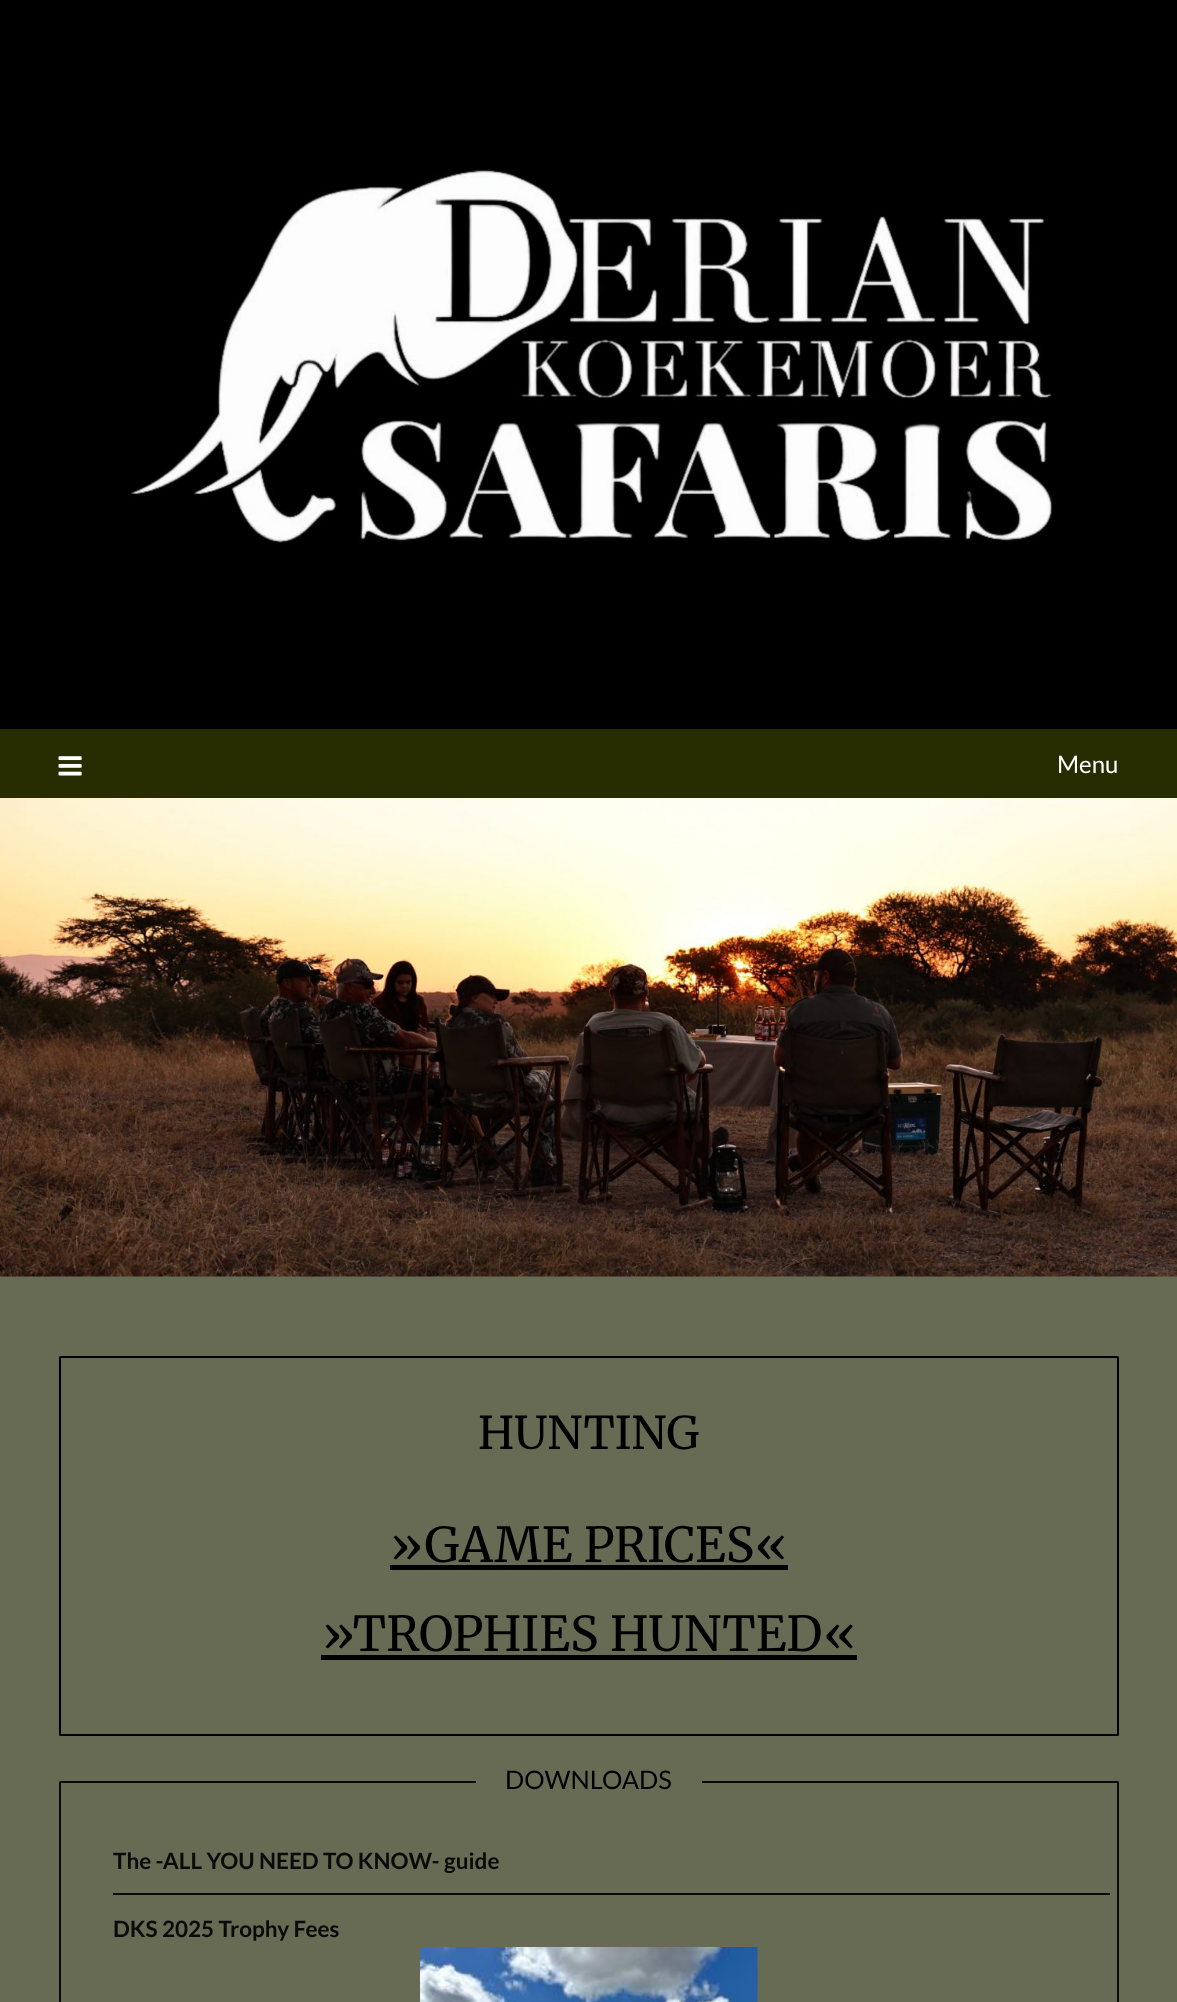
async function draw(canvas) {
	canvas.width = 1177;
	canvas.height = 2002;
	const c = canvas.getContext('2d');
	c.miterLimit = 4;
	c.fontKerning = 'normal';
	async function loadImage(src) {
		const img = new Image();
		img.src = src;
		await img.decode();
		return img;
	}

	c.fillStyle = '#686b54';
	c.fillRect(0, 0, 1177, 2002);
	c.fillStyle = '#000';
	c.fillRect(0, 0, 1177, 729);
	c.drawImage(await loadImage('img1.png'), 130, 170, 923, 374);
	c.fillStyle = '#272d00';
	c.fillRect(0, 729, 1177, 69);
	c.drawImage(await loadImage('img2.png'), 58, 756, 24, 20);
	c.font = '24px Lato';
	c.fillStyle = '#fff';
	c.fillText('Menu', 1057, 773);
	c.drawImage(await loadImage('img3.png'), 0, 798, 1177, 479);
	c.beginPath();
	c.roundRect(60, 1357, 1058, 378, 0.5);
	c.strokeStyle = '#000';
	c.lineWidth = 2;
	c.stroke();
	c.font = '45px Merriweather';
	c.fillStyle = '#000';
	c.fillText('HUNTING', 478, 1449);
	c.font = '48px Merriweather';
	c.fillText('»GAME PRICES«', 390, 1562);
	c.fillRect(390, 1565, 398, 5);
	c.fillText('»TROPHIES HUNTED«', 322, 1651);
	c.fillRect(321, 1655, 536, 5);
	c.beginPath();
	c.roundRect(60, 1782, 1058, 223, 0.5);
	c.strokeStyle = '#0a0a0a';
	c.stroke();
	c.fillStyle = '#686b54';
	c.fillRect(476, 1781, 226, 2);
	c.font = '25.5px Lato';
	c.fillStyle = '#000';
	c.fillText('DOWNLOADS', 505, 1789);
	c.fillStyle = '#0a0a0a';
	c.fillRect(113, 1893, 997, 2);
	c.font = 'bold 22.5px Lato';
	c.fillText('The -ALL YOU NEED TO KNOW- guide', 113, 1869);
	c.fillText('DKS 2025 Trophy Fees', 113, 1937);
	c.drawImage(await loadImage('img4.png'), 420, 1947, 338, 55);
}

draw(document.querySelector('canvas'));
